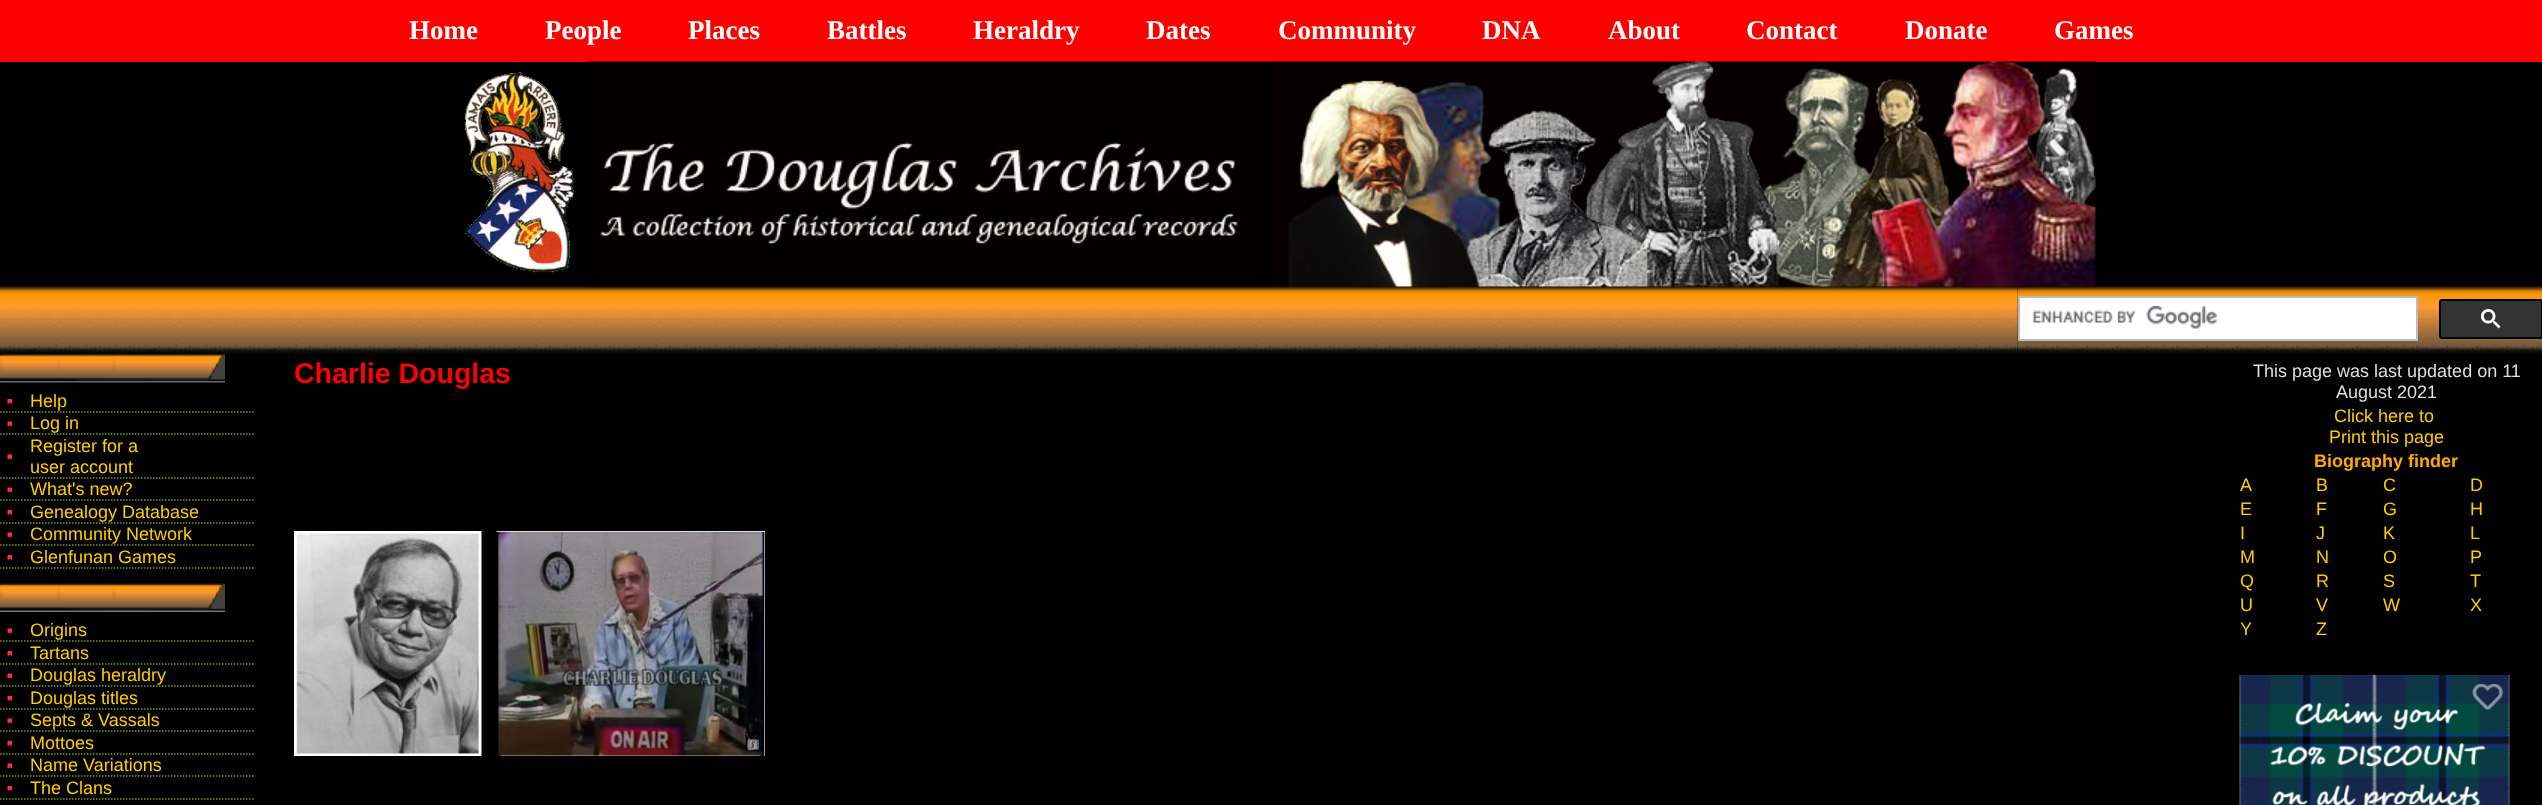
async function draw(canvas) {
	canvas.width = 2542;
	canvas.height = 805;
	const c = canvas.getContext('2d');
	c.miterLimit = 4;
	c.fontKerning = 'normal';
	async function loadImage(src) {
		const img = new Image();
		img.src = src;
		await img.decode();
		return img;
	}

	c.fillStyle = '#000';
	c.fillRect(0, 0, 2542, 805);
	c.fillStyle = '#f00';
	c.fillRect(0, 0, 2542, 62);
	c.font = 'bold 27px Liberation Serif';
	c.fillStyle = '#fff';
	for (const [text, x, y] of [
		['Home', 409, 39],
		['People', 545, 39],
		['Places', 688, 39],
		['Battles', 827, 39],
		['Heraldry', 973, 39],
		['Dates', 1146, 39],
		['Community', 1278, 39],
		['DNA', 1482, 39],
		['About', 1608, 39],
		['Contact', 1746, 39],
		['Donate', 1905, 39],
		['Games', 2054, 39],
	]) {
		c.fillText(text, x, y);
	}
	c.drawImage(await loadImage('img1.png'), 464, 72, 110, 201);
	c.drawImage(await loadImage('img4.png'), 0, 286, 2018, 68);
	c.drawImage(await loadImage('img2.png'), 588, 61, 683, 226);
	c.drawImage(await loadImage('img5.png'), 2017, 286, 525, 68);
	c.drawImage(await loadImage('img3.png'), 1270, 61, 826, 226);
	c.beginPath();
	c.rect(2019, 297, 398, 43);
	c.fill();
	c.strokeStyle = '#bbb';
	c.lineWidth = 2;
	c.stroke();
	c.drawImage(await loadImage('img6.png'), 2032, 306, 185, 23);
	c.fillStyle = '#333';
	c.beginPath();
	c.roundRect(2440, 300, 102, 38, 2);
	c.fill();
	c.strokeStyle = '#000';
	c.stroke();
	c.drawImage(await loadImage('img7.png'), 2481, 309, 20, 20);
	c.drawImage(await loadImage('img8.png'), 0, 354, 225, 29);
	c.drawImage(await loadImage('img9.png'), 7, 399, 5, 5);
	c.beginPath();
	c.moveTo(0, 412);
	c.lineTo(255, 412);
	c.strokeStyle = '#7b9418';
	c.lineWidth = 1.5;
	c.setLineDash([1.5, 1.5]);
	c.stroke();
	c.font = '18px Liberation Sans';
	c.fillStyle = '#fc0';
	c.fillText('Help', 30, 407);
	c.drawImage(await loadImage('img10.png'), 7, 421, 5, 5);
	c.beginPath();
	c.moveTo(0, 434);
	c.lineTo(255, 434);
	c.stroke();
	c.fillText('Log in', 30, 429);
	c.drawImage(await loadImage('img10.png'), 7, 454, 5, 5);
	c.beginPath();
	c.moveTo(0, 478);
	c.lineTo(255, 478);
	c.stroke();
	c.fillText('Register for a', 30, 452);
	c.fillText('user account', 30, 473);
	c.drawImage(await loadImage('img10.png'), 7, 487, 5, 5);
	c.beginPath();
	c.moveTo(0, 500);
	c.lineTo(255, 500);
	c.stroke();
	c.fillText('What\'s new?', 30, 495);
	c.drawImage(await loadImage('img9.png'), 7, 510, 5, 5);
	c.beginPath();
	c.moveTo(0, 523);
	c.lineTo(255, 523);
	c.stroke();
	c.fillText('Genealogy Database', 30, 518);
	c.drawImage(await loadImage('img10.png'), 7, 532, 5, 5);
	c.beginPath();
	c.moveTo(0, 545);
	c.lineTo(255, 545);
	c.stroke();
	c.fillText('Community Network', 30, 540);
	c.drawImage(await loadImage('img9.png'), 7, 555, 5, 5);
	c.beginPath();
	c.moveTo(0, 568);
	c.lineTo(255, 568);
	c.stroke();
	c.fillText('Glenfunan Games', 30, 563);
	c.drawImage(await loadImage('img11.png'), 0, 583, 225, 29);
	c.drawImage(await loadImage('img10.png'), 7, 628, 5, 5);
	c.beginPath();
	c.moveTo(0, 641);
	c.lineTo(255, 641);
	c.stroke();
	c.fillText('Origins', 30, 636);
	c.drawImage(await loadImage('img9.png'), 7, 651, 5, 5);
	c.beginPath();
	c.moveTo(0, 664);
	c.lineTo(255, 664);
	c.stroke();
	c.fillText('Tartans', 30, 659);
	c.drawImage(await loadImage('img10.png'), 7, 673, 5, 5);
	c.beginPath();
	c.moveTo(0, 686);
	c.lineTo(255, 686);
	c.stroke();
	c.fillText('Douglas heraldry', 30, 681);
	c.drawImage(await loadImage('img9.png'), 7, 696, 5, 5);
	c.beginPath();
	c.moveTo(0, 709);
	c.lineTo(255, 709);
	c.stroke();
	c.fillText('Douglas titles', 30, 704);
	c.drawImage(await loadImage('img10.png'), 7, 718, 5, 5);
	c.beginPath();
	c.moveTo(0, 731);
	c.lineTo(255, 731);
	c.stroke();
	c.fillText('Septs & Vassals', 30, 726);
	c.drawImage(await loadImage('img9.png'), 7, 741, 5, 5);
	c.beginPath();
	c.moveTo(0, 754);
	c.lineTo(255, 754);
	c.stroke();
	c.fillText('Mottoes', 30, 749);
	c.drawImage(await loadImage('img10.png'), 7, 763, 5, 5);
	c.beginPath();
	c.moveTo(0, 776);
	c.lineTo(255, 776);
	c.stroke();
	c.fillText('Name Variations', 30, 771);
	c.drawImage(await loadImage('img9.png'), 7, 786, 5, 5);
	c.beginPath();
	c.moveTo(0, 799);
	c.lineTo(255, 799);
	c.stroke();
	c.fillText('The Clans', 30, 794);
	c.font = 'bold 28.5px Liberation Sans';
	c.fillStyle = '#f00';
	c.fillText('Charlie Douglas', 294, 383);
	c.font = '18px Liberation Sans';
	c.fillStyle = '#dfdfdf';
	c.fillText('This page was last updated on 11', 2253, 377);
	c.fillText('August 2021', 2336, 398);
	c.fillStyle = '#fc0';
	c.fillText('Click here to', 2334, 422);
	c.fillText('Print this page', 2329, 443);
	c.font = 'bold 18px Liberation Sans';
	c.fillStyle = '#fa0';
	c.fillText('Biography finder', 2314, 467);
	c.font = '18px Liberation Sans';
	c.fillStyle = '#fc0';
	for (const [text, x, y] of [
		['A', 2240, 491],
		['B', 2316, 491],
		['C', 2383, 491],
		['D', 2470, 491],
		['E', 2240, 515],
		['F', 2316, 515],
		['G', 2383, 515],
		['H', 2470, 515],
		['I', 2240, 539],
		['J', 2316, 539],
		['K', 2383, 539],
		['L', 2470, 539],
		['M', 2240, 563],
		['N', 2316, 563],
		['O', 2383, 563],
		['P', 2470, 563],
		['Q', 2240, 587],
		['R', 2316, 587],
		['S', 2383, 587],
		['T', 2470, 587],
		['U', 2240, 611],
		['V', 2316, 611],
		['W', 2383, 611],
		['X', 2470, 611],
		['Y', 2240, 635],
		['Z', 2316, 635],
	]) {
		c.fillText(text, x, y);
	}
	c.drawImage(await loadImage('img12.png'), 2239, 675, 271, 130);
	c.drawImage(await loadImage('img13.png'), 294, 531, 188, 225);
	c.drawImage(await loadImage('img14.png'), 496, 531, 269, 225);
}

draw(document.querySelector('canvas'));
